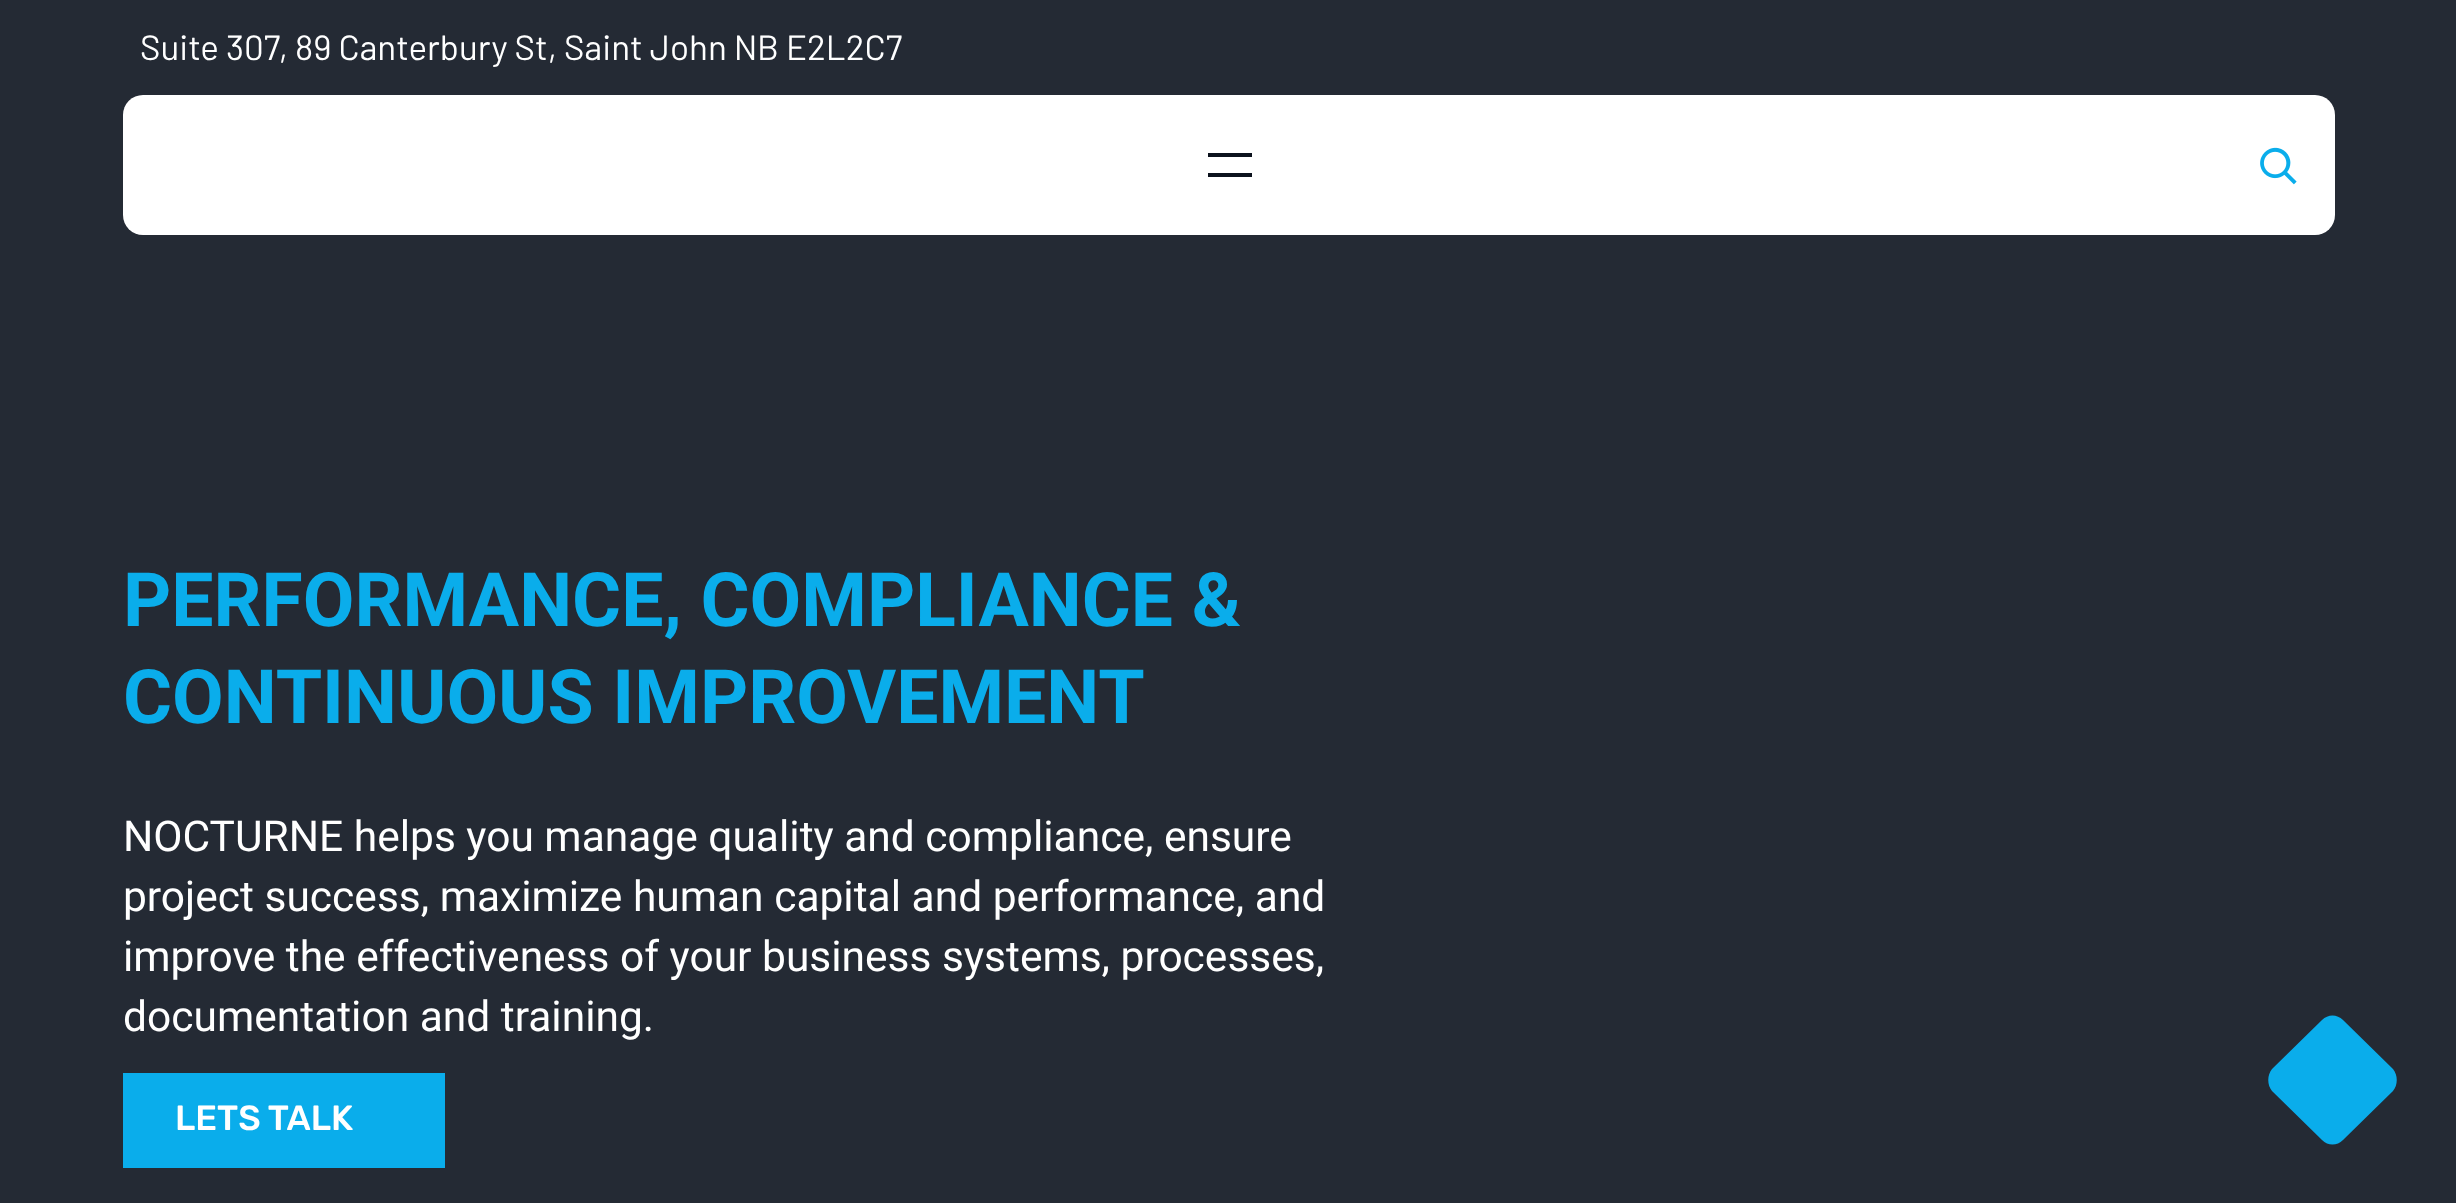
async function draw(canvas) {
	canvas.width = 2456;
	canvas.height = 1203;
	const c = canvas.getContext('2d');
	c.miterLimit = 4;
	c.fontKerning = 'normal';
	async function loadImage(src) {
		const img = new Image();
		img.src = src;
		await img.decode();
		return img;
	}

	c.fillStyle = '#242a34';
	c.fillRect(0, 0, 2456, 1203);
	c.font = '35px Barlow';
	c.fillStyle = '#fff';
	c.fillText('Suite 307, 89 Canterbury St, Saint John NB E2L2C7', 140, 60);
	c.beginPath();
	c.roundRect(123, 95, 2212, 140, 20);
	c.fill();
	c.fillStyle = '#0c121d';
	c.fillRect(1208, 153, 44, 4);
	c.fillRect(1208, 173, 44, 4);
	c.drawImage(await loadImage('img1.png'), 2260, 147, 37, 38);
	c.font = 'bold 75px Roboto';
	c.fillStyle = '#0aadeb';
	c.fillText('PERFORMANCE, COMPLIANCE &', 123, 626);
	c.fillText('CONTINUOUS IMPROVEMENT', 123, 723);
	c.font = '42.5px Roboto';
	c.fillStyle = '#fff';
	for (const [text, x, y] of [
		['NOCTURNE helps you manage quality and compliance, ensure', 123, 851],
		['project success, maximize human capital and performance, and', 123, 911],
		['improve the effectiveness of your business systems, processes,', 123, 971],
		['documentation and training.', 123, 1031],
	]) {
		c.fillText(text, x, y);
	}
	c.fillStyle = '#0aadeb';
	c.fillRect(123, 1073, 322, 95);
	c.font = '500 35px Rubik';
	c.fillStyle = '#fff';
	c.fillText('LETS TALK', 175, 1130);
	c.fillStyle = '#0aadeb';
	c.beginPath();
	c.moveTo(2272, 1069);
	c.lineTo(2322, 1020);
	c.bezierCurveTo(2328, 1014, 2337, 1014, 2343, 1020);
	c.lineTo(2393, 1069);
	c.bezierCurveTo(2398, 1075, 2398, 1085, 2393, 1091);
	c.lineTo(2343, 1140);
	c.bezierCurveTo(2337, 1146, 2328, 1146, 2322, 1140);
	c.lineTo(2272, 1091);
	c.bezierCurveTo(2267, 1085, 2267, 1075, 2272, 1069);
	c.closePath();
	c.fill();
}

draw(document.querySelector('canvas'));
